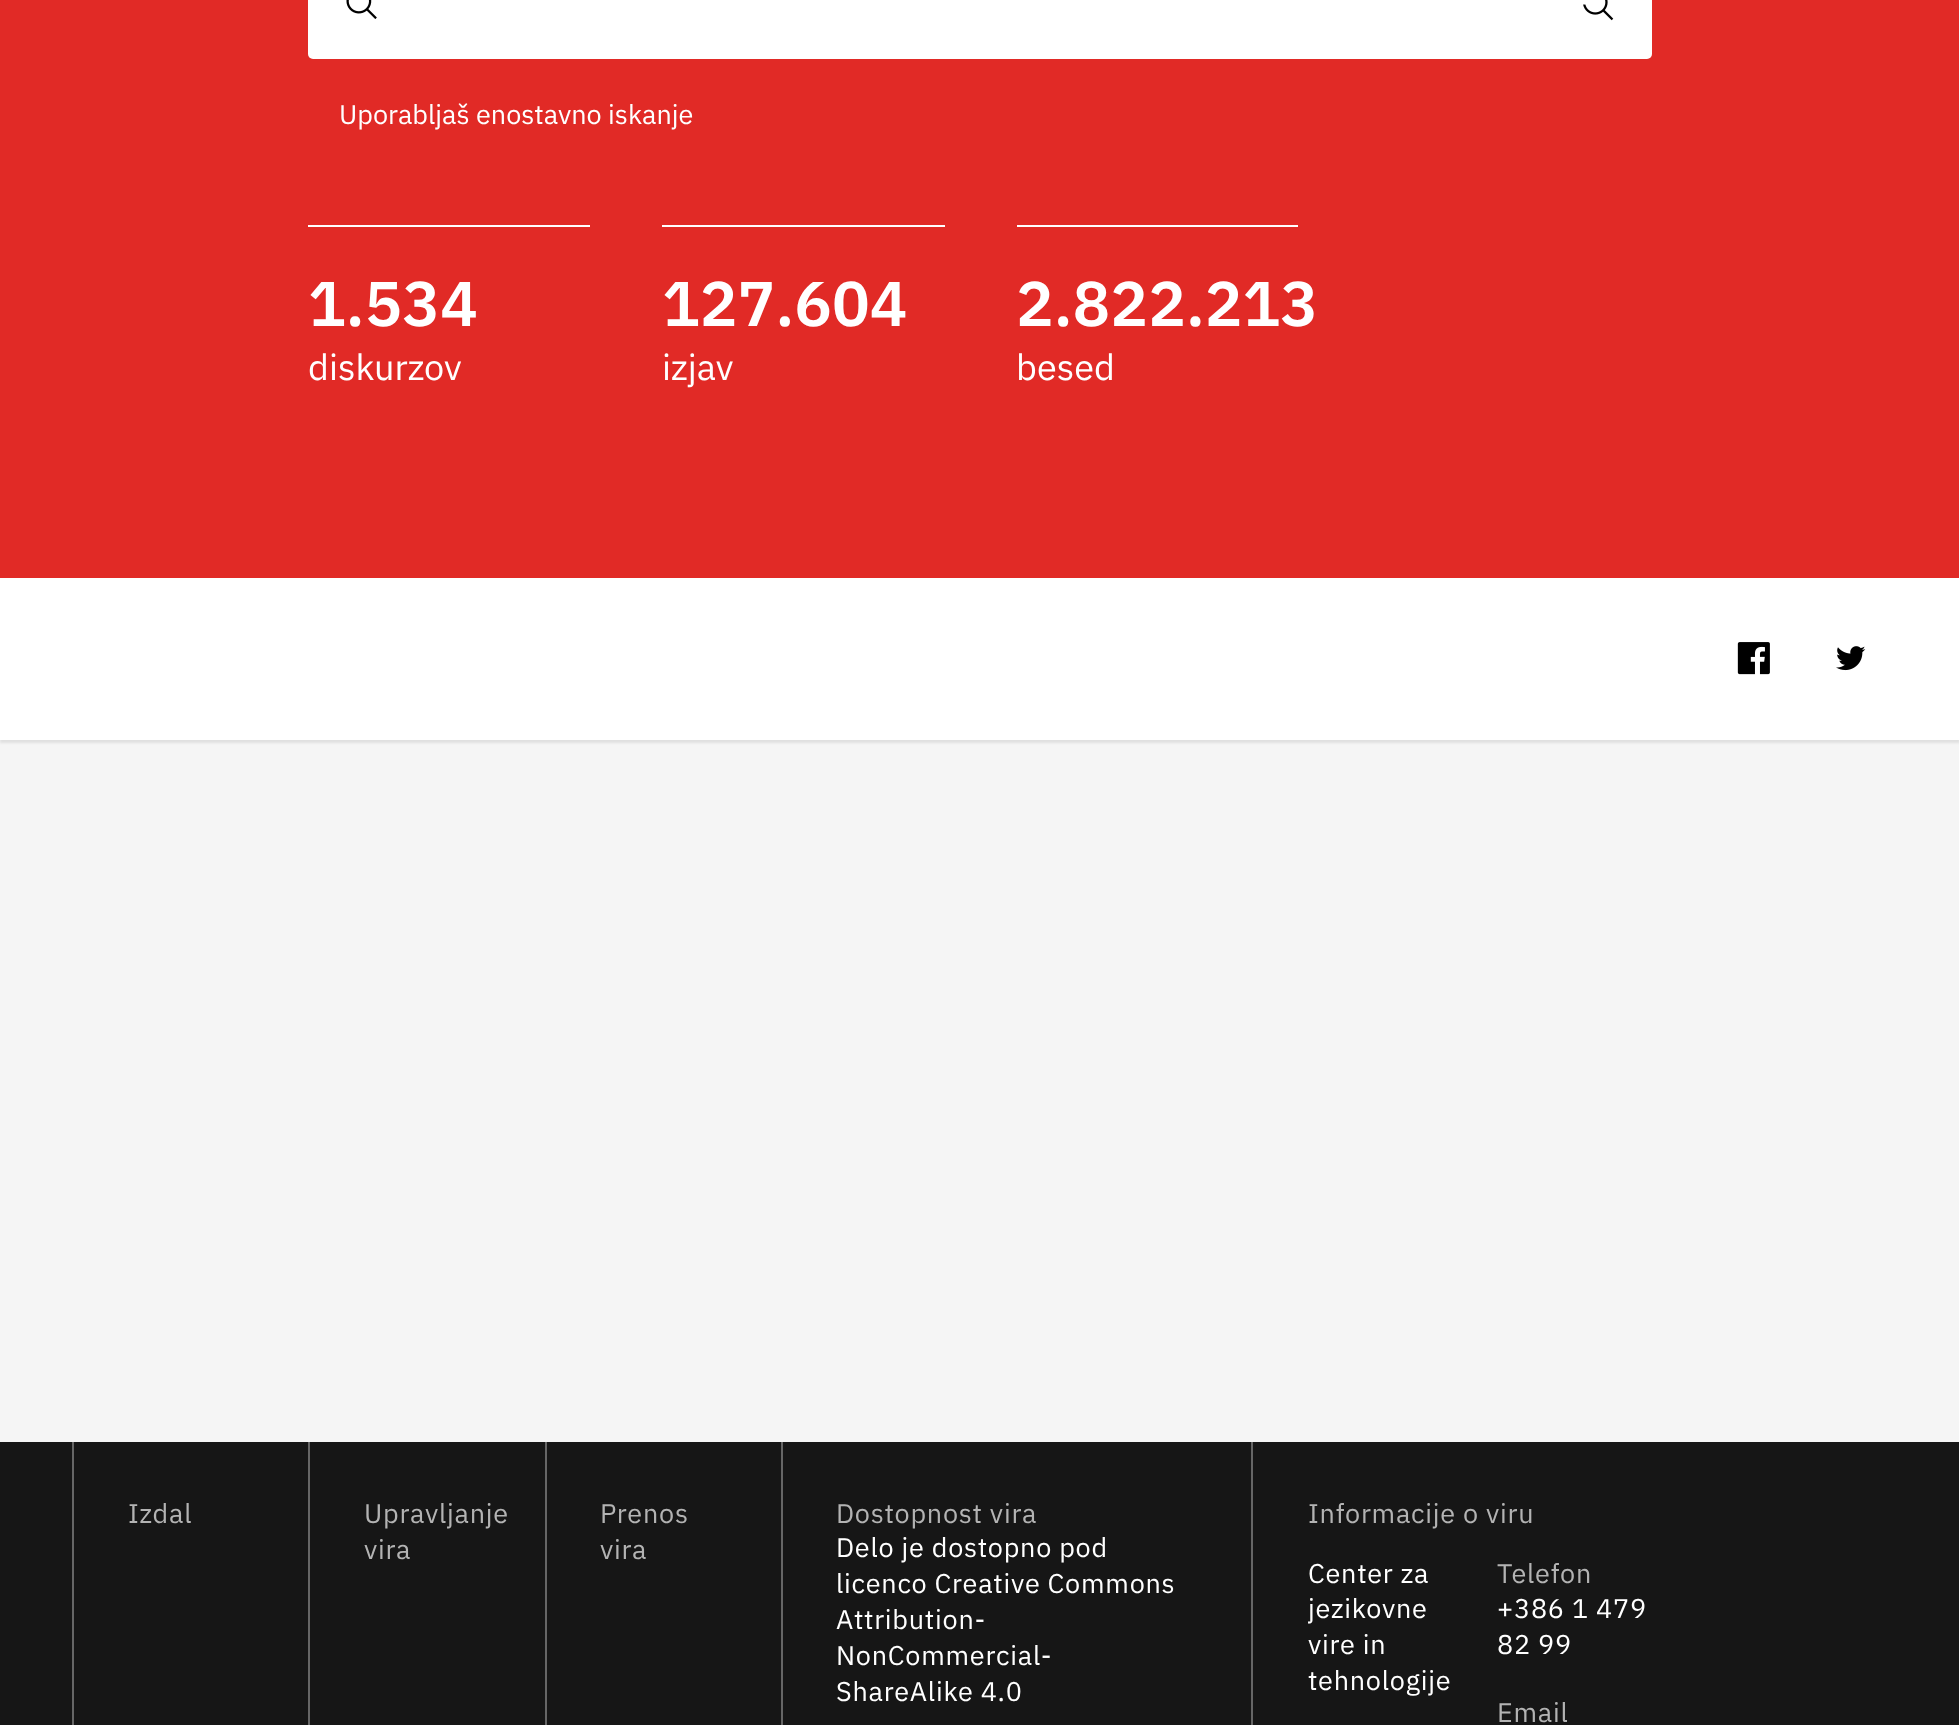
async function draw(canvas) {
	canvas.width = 1959;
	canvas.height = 1725;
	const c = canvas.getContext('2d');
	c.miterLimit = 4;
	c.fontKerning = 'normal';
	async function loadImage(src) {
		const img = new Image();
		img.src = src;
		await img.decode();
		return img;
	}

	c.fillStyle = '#f5f5f5';
	c.fillRect(0, 0, 1959, 1725);
	c.fillStyle = '#e12a26';
	c.fillRect(0, 0, 1959, 578);
	c.fillStyle = '#fff';
	c.beginPath();
	c.roundRect(308, -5, 1344, 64, 5);
	c.fill();
	c.drawImage(await loadImage('img1.png'), 346, 0, 31, 19);
	c.drawImage(await loadImage('img2.png'), 1583, 0, 31, 21);
	c.font = '27px IBM Plex Sans';
	c.fillText('Uporabljaš enostavno iskanje', 339, 124);
	c.fillRect(308, 225, 282, 2);
	c.font = '600 63px IBM Plex Sans';
	c.fillText('1.534', 308, 326);
	c.font = '36px IBM Plex Sans';
	c.fillText('diskurzov', 308, 380);
	c.fillRect(662, 225, 283, 2);
	c.font = '600 63px IBM Plex Sans';
	c.fillText('127.604', 662, 326);
	c.font = '36px IBM Plex Sans';
	c.fillText('izjav', 662, 380);
	c.fillRect(1017, 225, 281, 2);
	c.font = '600 63px IBM Plex Sans';
	c.fillText('2.822.213', 1016, 326);
	c.font = '36px IBM Plex Sans';
	c.fillText('besed', 1016, 380);
	c.fillStyle = '#e0e0e0';
	c.filter = 'blur(1px)';
	c.beginPath();
	c.rect(0, 581, 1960, 162);
	c.fill();
	c.filter = 'none';
	c.fillStyle = '#fff';
	c.fillRect(0, 578, 1959, 162);
	c.drawImage(await loadImage('img3.png'), 1737, 642, 33, 33);
	c.drawImage(await loadImage('img4.png'), 1836, 646, 30, 25);
	c.fillStyle = '#161616';
	c.fillRect(0, 1442, 1959, 283);
	c.fillStyle = '#666';
	c.fillRect(72, 1442, 2, 283);
	c.letterSpacing = '0.75px';
	c.font = '27px IBM Plex Sans';
	c.fillStyle = '#b3b3b3';
	c.fillText('Izdal', 128, 1523);
	c.fillStyle = '#666';
	c.fillRect(308, 1442, 2, 283);
	c.fillStyle = '#b3b3b3';
	c.fillText('Upravljanje', 364, 1523);
	c.fillText('vira', 364, 1559);
	c.fillStyle = '#666';
	c.fillRect(545, 1442, 2, 283);
	c.fillStyle = '#b3b3b3';
	c.fillText('Prenos', 600, 1523);
	c.fillText('vira', 600, 1559);
	c.fillStyle = '#666';
	c.fillRect(781, 1442, 2, 283);
	c.fillStyle = '#b3b3b3';
	c.fillText('Dostopnost vira', 836, 1523);
	c.fillStyle = '#fff';
	for (const [text, x, y] of [
		['Delo je dostopno pod', 836, 1557],
		['licenco Creative Commons', 836, 1593],
		['Attribution-', 836, 1629],
		['NonCommercial-', 836, 1665],
		['ShareAlike 4.0', 836, 1701],
	]) {
		c.fillText(text, x, y);
	}
	c.fillStyle = '#666';
	c.fillRect(1251, 1442, 2, 283);
	c.fillStyle = '#b3b3b3';
	c.fillText('Informacije o viru', 1308, 1523);
	c.fillStyle = '#fff';
	for (const [text, x, y] of [
		['Center za', 1308, 1583],
		['jezikovne', 1308, 1618],
		['vire in', 1308, 1654],
		['tehnologije', 1308, 1690],
	]) {
		c.fillText(text, x, y);
	}
	c.fillStyle = '#b3b3b3';
	c.fillText('Telefon', 1497, 1583);
	c.fillStyle = '#fff';
	c.fillText('+386 1 479', 1497, 1618);
	c.fillText('82 99', 1497, 1654);
	c.fillStyle = '#b3b3b3';
	c.fillText('Email', 1497, 1722);
}

draw(document.querySelector('canvas'));
